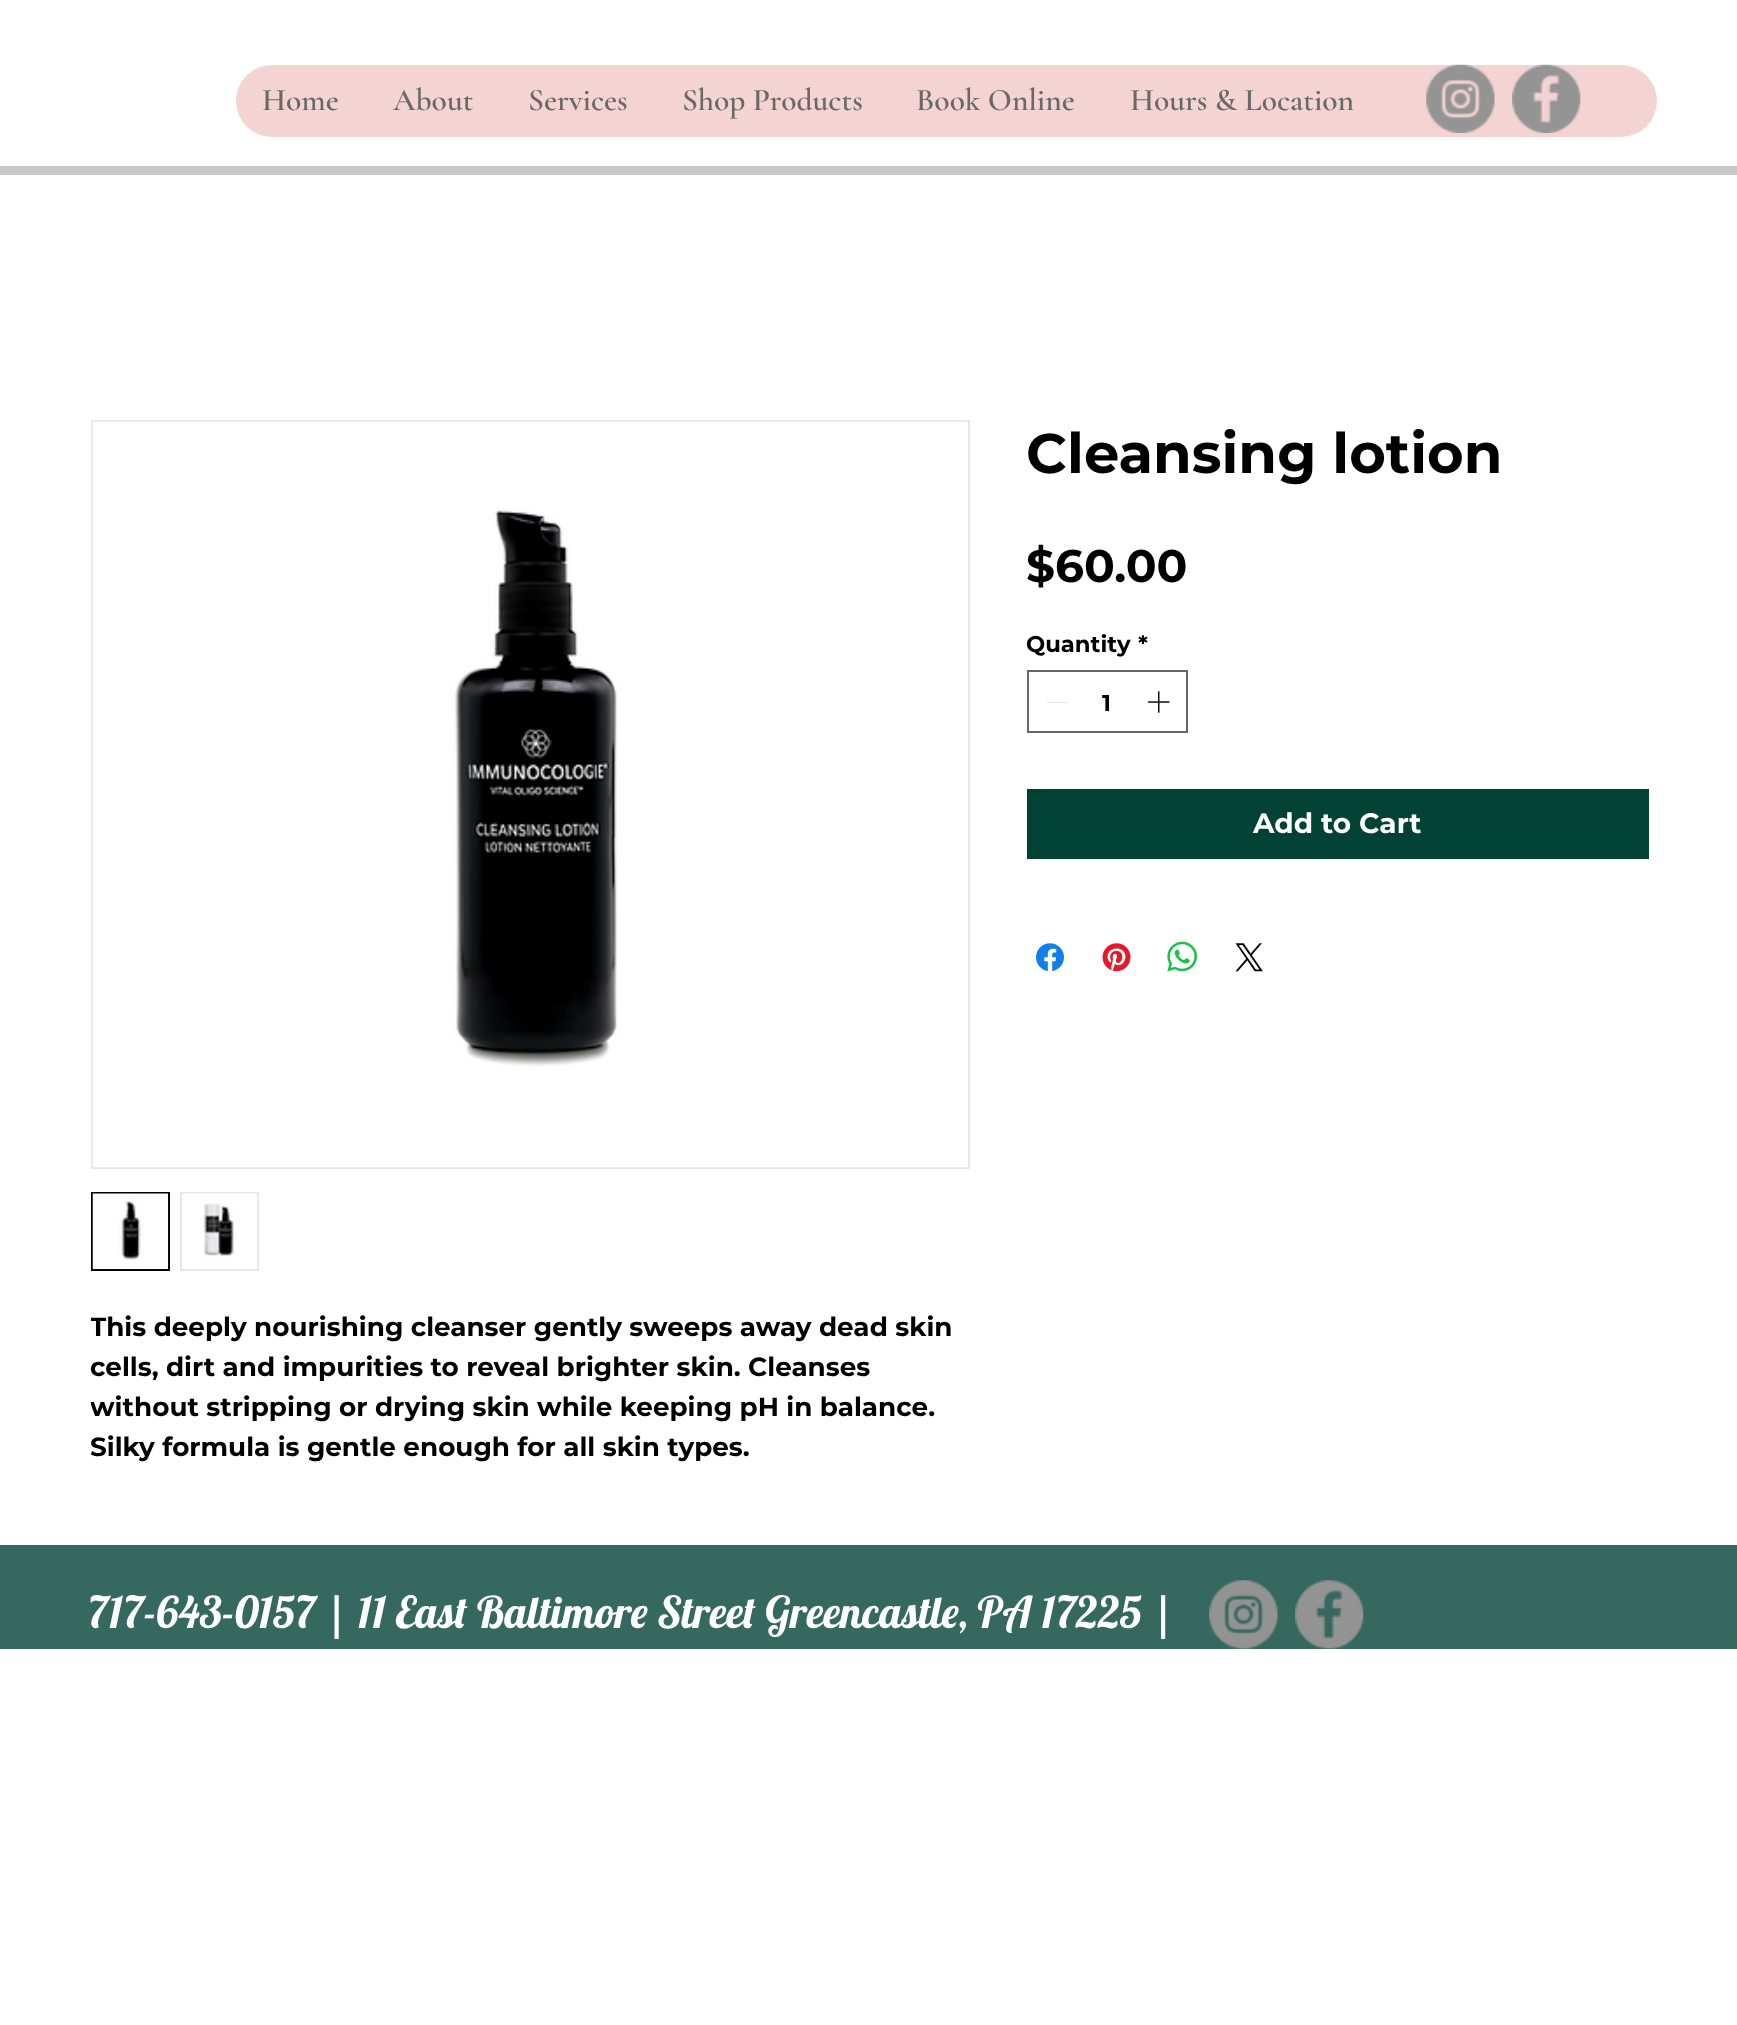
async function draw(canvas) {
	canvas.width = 1737;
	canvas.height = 2025;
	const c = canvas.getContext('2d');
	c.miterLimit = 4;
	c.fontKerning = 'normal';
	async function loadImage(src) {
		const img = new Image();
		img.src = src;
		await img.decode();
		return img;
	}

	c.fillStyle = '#fff';
	c.fillRect(0, 0, 1737, 2025);
	c.fillStyle = '#f3d4d2';
	c.beginPath();
	c.roundRect(236, 65, 1421, 72, 36);
	c.fill();
	c.font = '600 31.5px Cormorant Garamond';
	c.fillStyle = '#696969';
	for (const [text, x, y] of [
		['Home', 262, 110],
		['About', 393, 110],
		['Services', 528, 110],
		['Shop Products', 682, 110],
		['Book Online', 916, 110],
		['Hours & Location', 1130, 110],
	]) {
		c.fillText(text, x, y);
	}
	c.drawImage(await loadImage('img1.png'), 1426, 64, 69, 69);
	c.drawImage(await loadImage('img2.png'), 1512, 64, 69, 69);
	c.fillStyle = '#c7c7c7';
	c.fillRect(0, 166, 1737, 9);
	c.font = 'bold 56px Montserrat';
	c.fillStyle = '#000';
	c.fillText('Cleansing lotion', 1026, 473);
	c.font = 'bold 45.5px Montserrat';
	c.fillText('$60.00', 1026, 582);
	c.font = 'bold 22.75px Montserrat';
	c.fillText('Quantity', 1026, 652);
	c.fillText('*', 1138, 652);
	c.strokeStyle = '#666';
	c.lineWidth = 2;
	c.strokeRect(1028, 671, 159, 61);
	c.fillStyle = '#e3e3e3';
	c.fillRect(1047, 702, 21, 1);
	c.fillStyle = '#000';
	c.fillText('1', 1102, 711);
	c.drawImage(await loadImage('img3.png'), 1148, 691, 22, 22);
	c.fillStyle = '#014235';
	c.fillRect(1027, 789, 622, 70);
	c.font = 'bold 28px Montserrat';
	c.fillStyle = '#fff';
	c.fillText('Add to Cart', 1253, 833);
	c.drawImage(await loadImage('img4.png'), 1036, 943, 28, 28);
	c.drawImage(await loadImage('img5.png'), 1102, 943, 29, 29);
	c.drawImage(await loadImage('img6.png'), 1167, 941, 30, 31);
	c.drawImage(await loadImage('img7.png'), 1235, 943, 28, 29);
	c.strokeStyle = '#e8e6e6';
	c.strokeRect(92, 421, 877, 747);
	c.drawImage(await loadImage('img8.png'), 92, 421, 876, 747);
	c.strokeStyle = '#000';
	c.strokeRect(92, 1193, 77, 77);
	c.drawImage(await loadImage('img9.png'), 92, 1193, 77, 77);
	c.strokeStyle = '#e8e6e6';
	c.strokeRect(181, 1193, 77, 77);
	c.drawImage(await loadImage('img10.png'), 182, 1193, 76, 75);
	c.save();
	c.beginPath();
	c.rect(91, 1306, 875, 161);
	c.clip();
	c.font = 'bold 26.25px Montserrat';
	c.fillStyle = '#000';
	c.fillText('This deeply nourishing cleanser gently sweeps away dead skin', 90, 1336);
	c.restore();
	c.font = 'bold 26.25px Montserrat';
	c.fillStyle = '#000';
	c.fillText('cells, dirt and impurities to reveal brighter skin. Cleanses', 90, 1376);
	c.save();
	c.beginPath();
	c.rect(91, 1306, 875, 161);
	c.clip();
	c.fillText('without stripping or drying skin while keeping pH in balance.', 90, 1416);
	c.restore();
	c.fillText('Silky formula is gentle enough for all skin types.', 90, 1456);
	c.fillStyle = '#35685e';
	c.fillRect(0, 1545, 1737, 104);
	c.font = '43.75px Lobster';
	c.fillStyle = '#fff';
	c.fillText('717-643-0157 | 11 East Baltimore Street Greencastle, PA 17225 |', 88, 1628);
	c.drawImage(await loadImage('img11.png'), 1209, 1580, 69, 69);
	c.drawImage(await loadImage('img12.png'), 1295, 1580, 69, 69);
}

draw(document.querySelector('canvas'));
